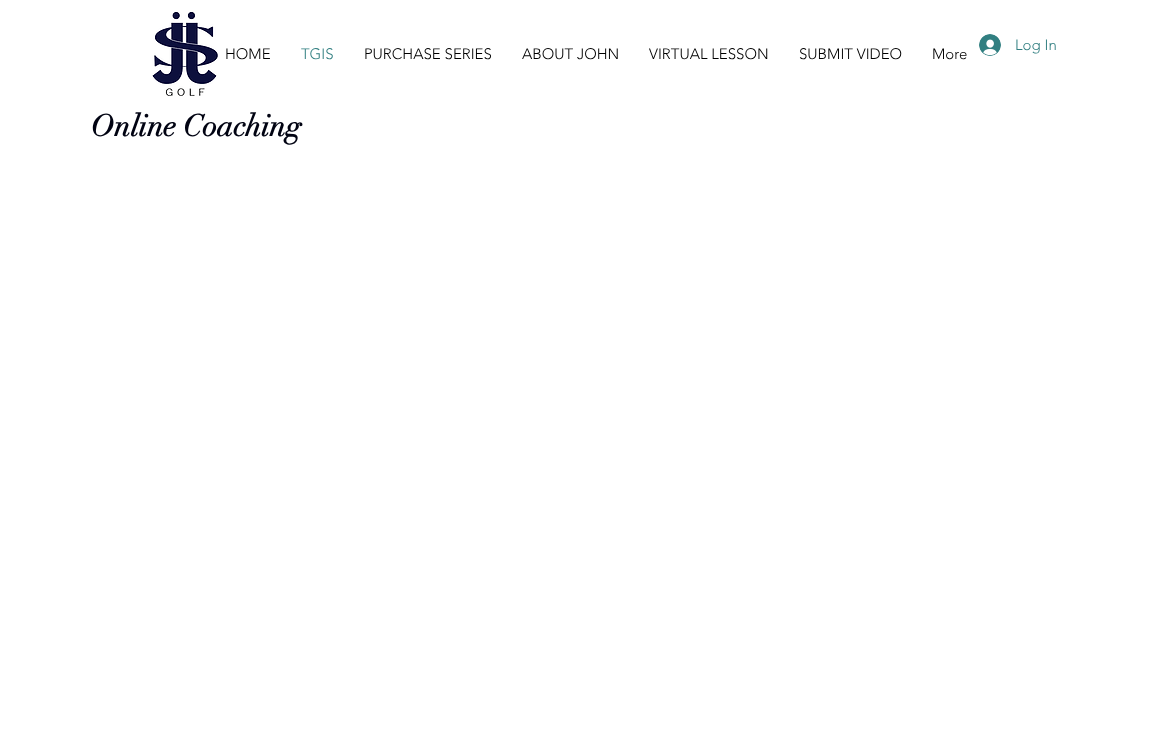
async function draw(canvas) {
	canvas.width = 1161;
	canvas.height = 731;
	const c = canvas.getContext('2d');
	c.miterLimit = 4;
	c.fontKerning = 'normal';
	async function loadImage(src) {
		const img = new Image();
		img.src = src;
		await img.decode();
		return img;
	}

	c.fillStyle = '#fff';
	c.fillRect(0, 0, 1161, 731);
	c.drawImage(await loadImage('img1.png'), 152, 12, 66, 84);
	c.font = '300 15px "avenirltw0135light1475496"';
	c.fillStyle = '#000';
	c.fillText('HOME', 225, 59);
	c.fillStyle = '#317f81';
	c.fillText('TGIS', 301, 59);
	c.fillStyle = '#000';
	for (const [text, x, y] of [
		['PURCHASE SERIES', 364, 59],
		['ABOUT JOHN', 522, 59],
		['VIRTUAL LESSON', 649, 59],
		['SUBMIT VIDEO', 799, 59],
		['More', 932, 59],
	]) {
		c.fillText(text, x, y);
	}
	c.drawImage(await loadImage('img2.png'), 979, 34, 22, 22);
	c.fillStyle = '#317f81';
	c.fillText('Log In', 1015, 50);
	c.font = 'bold 30px didot';
	c.fillStyle = '#010312';
	c.fillText('Online Coaching', 91, 136);
}

draw(document.querySelector('canvas'));
